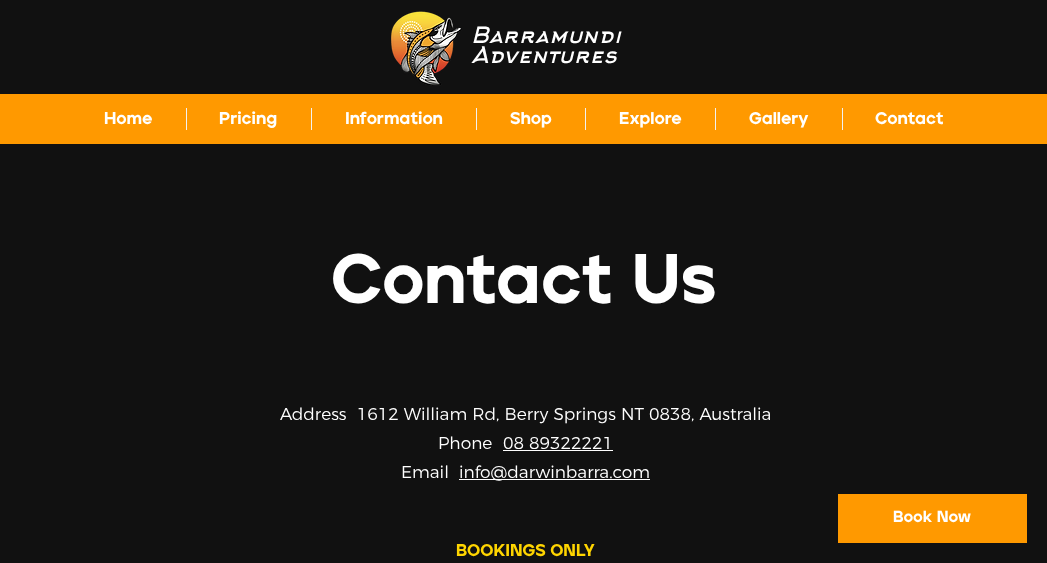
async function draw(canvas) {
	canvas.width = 1047;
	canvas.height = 563;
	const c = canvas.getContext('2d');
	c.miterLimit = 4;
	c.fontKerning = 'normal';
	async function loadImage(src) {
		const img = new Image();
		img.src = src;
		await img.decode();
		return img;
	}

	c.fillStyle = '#111';
	c.fillRect(0, 0, 1047, 563);
	c.drawImage(await loadImage('img1.png'), 391, 11, 71, 75);
	c.font = 'italic 22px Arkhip';
	c.fillStyle = '#fff';
	c.fillText('Barramundi', 471, 43);
	c.fillText('Adventures', 471, 63);
	c.fillStyle = '#f90';
	c.fillRect(0, 94, 1047, 50);
	c.font = '900 17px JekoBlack';
	c.fillStyle = '#fff';
	c.fillText('Home', 104, 124);
	c.fillStyle = '#f2f2f2';
	c.fillRect(186, 108, 1, 22);
	c.fillStyle = '#fff';
	c.fillText('Pricing', 219, 124);
	c.fillStyle = '#f2f2f2';
	c.fillRect(311, 108, 1, 22);
	c.fillStyle = '#fff';
	c.fillText('Information', 345, 124);
	c.fillStyle = '#f2f2f2';
	c.fillRect(476, 108, 1, 22);
	c.fillStyle = '#fff';
	c.fillText('Shop', 510, 124);
	c.fillStyle = '#f2f2f2';
	c.fillRect(585, 108, 1, 22);
	c.fillStyle = '#fff';
	c.fillText('Explore', 619, 124);
	c.fillStyle = '#f2f2f2';
	c.fillRect(715, 108, 1, 22);
	c.fillStyle = '#fff';
	c.fillText('Gallery', 749, 124);
	c.fillStyle = '#f2f2f2';
	c.fillRect(842, 108, 1, 22);
	c.fillStyle = '#fff';
	c.fillText('Contact', 875, 124);
	c.font = '900 70px JekoBlack';
	c.fillText('Contact Us', 331, 303);
	c.font = '300 17px Montserrat';
	for (const [text, x, y] of [
		['Address  1612 William Rd, Berry Springs NT 0838, Australia', 280, 420],
		['Phone', 438, 449],
		['08 89322221', 503, 449],
	]) {
		c.fillText(text, x, y);
	}
	c.fillRect(503, 450, 110, 1);
	c.fillText('Email', 401, 478);
	c.fillRect(459, 479, 191, 1);
	c.fillText('info@darwinbarra.com', 459, 478);
	c.font = '900 17px JekoBlack';
	c.fillStyle = '#ffd500';
	c.fillText('BOOKINGS ONLY', 456, 556);
	c.fillStyle = '#f90';
	c.fillRect(838, 494, 189, 49);
	c.font = '900 16px JekoBlack';
	c.fillStyle = '#fff';
	c.fillText('Book Now', 893, 522);
}

draw(document.querySelector('canvas'));
